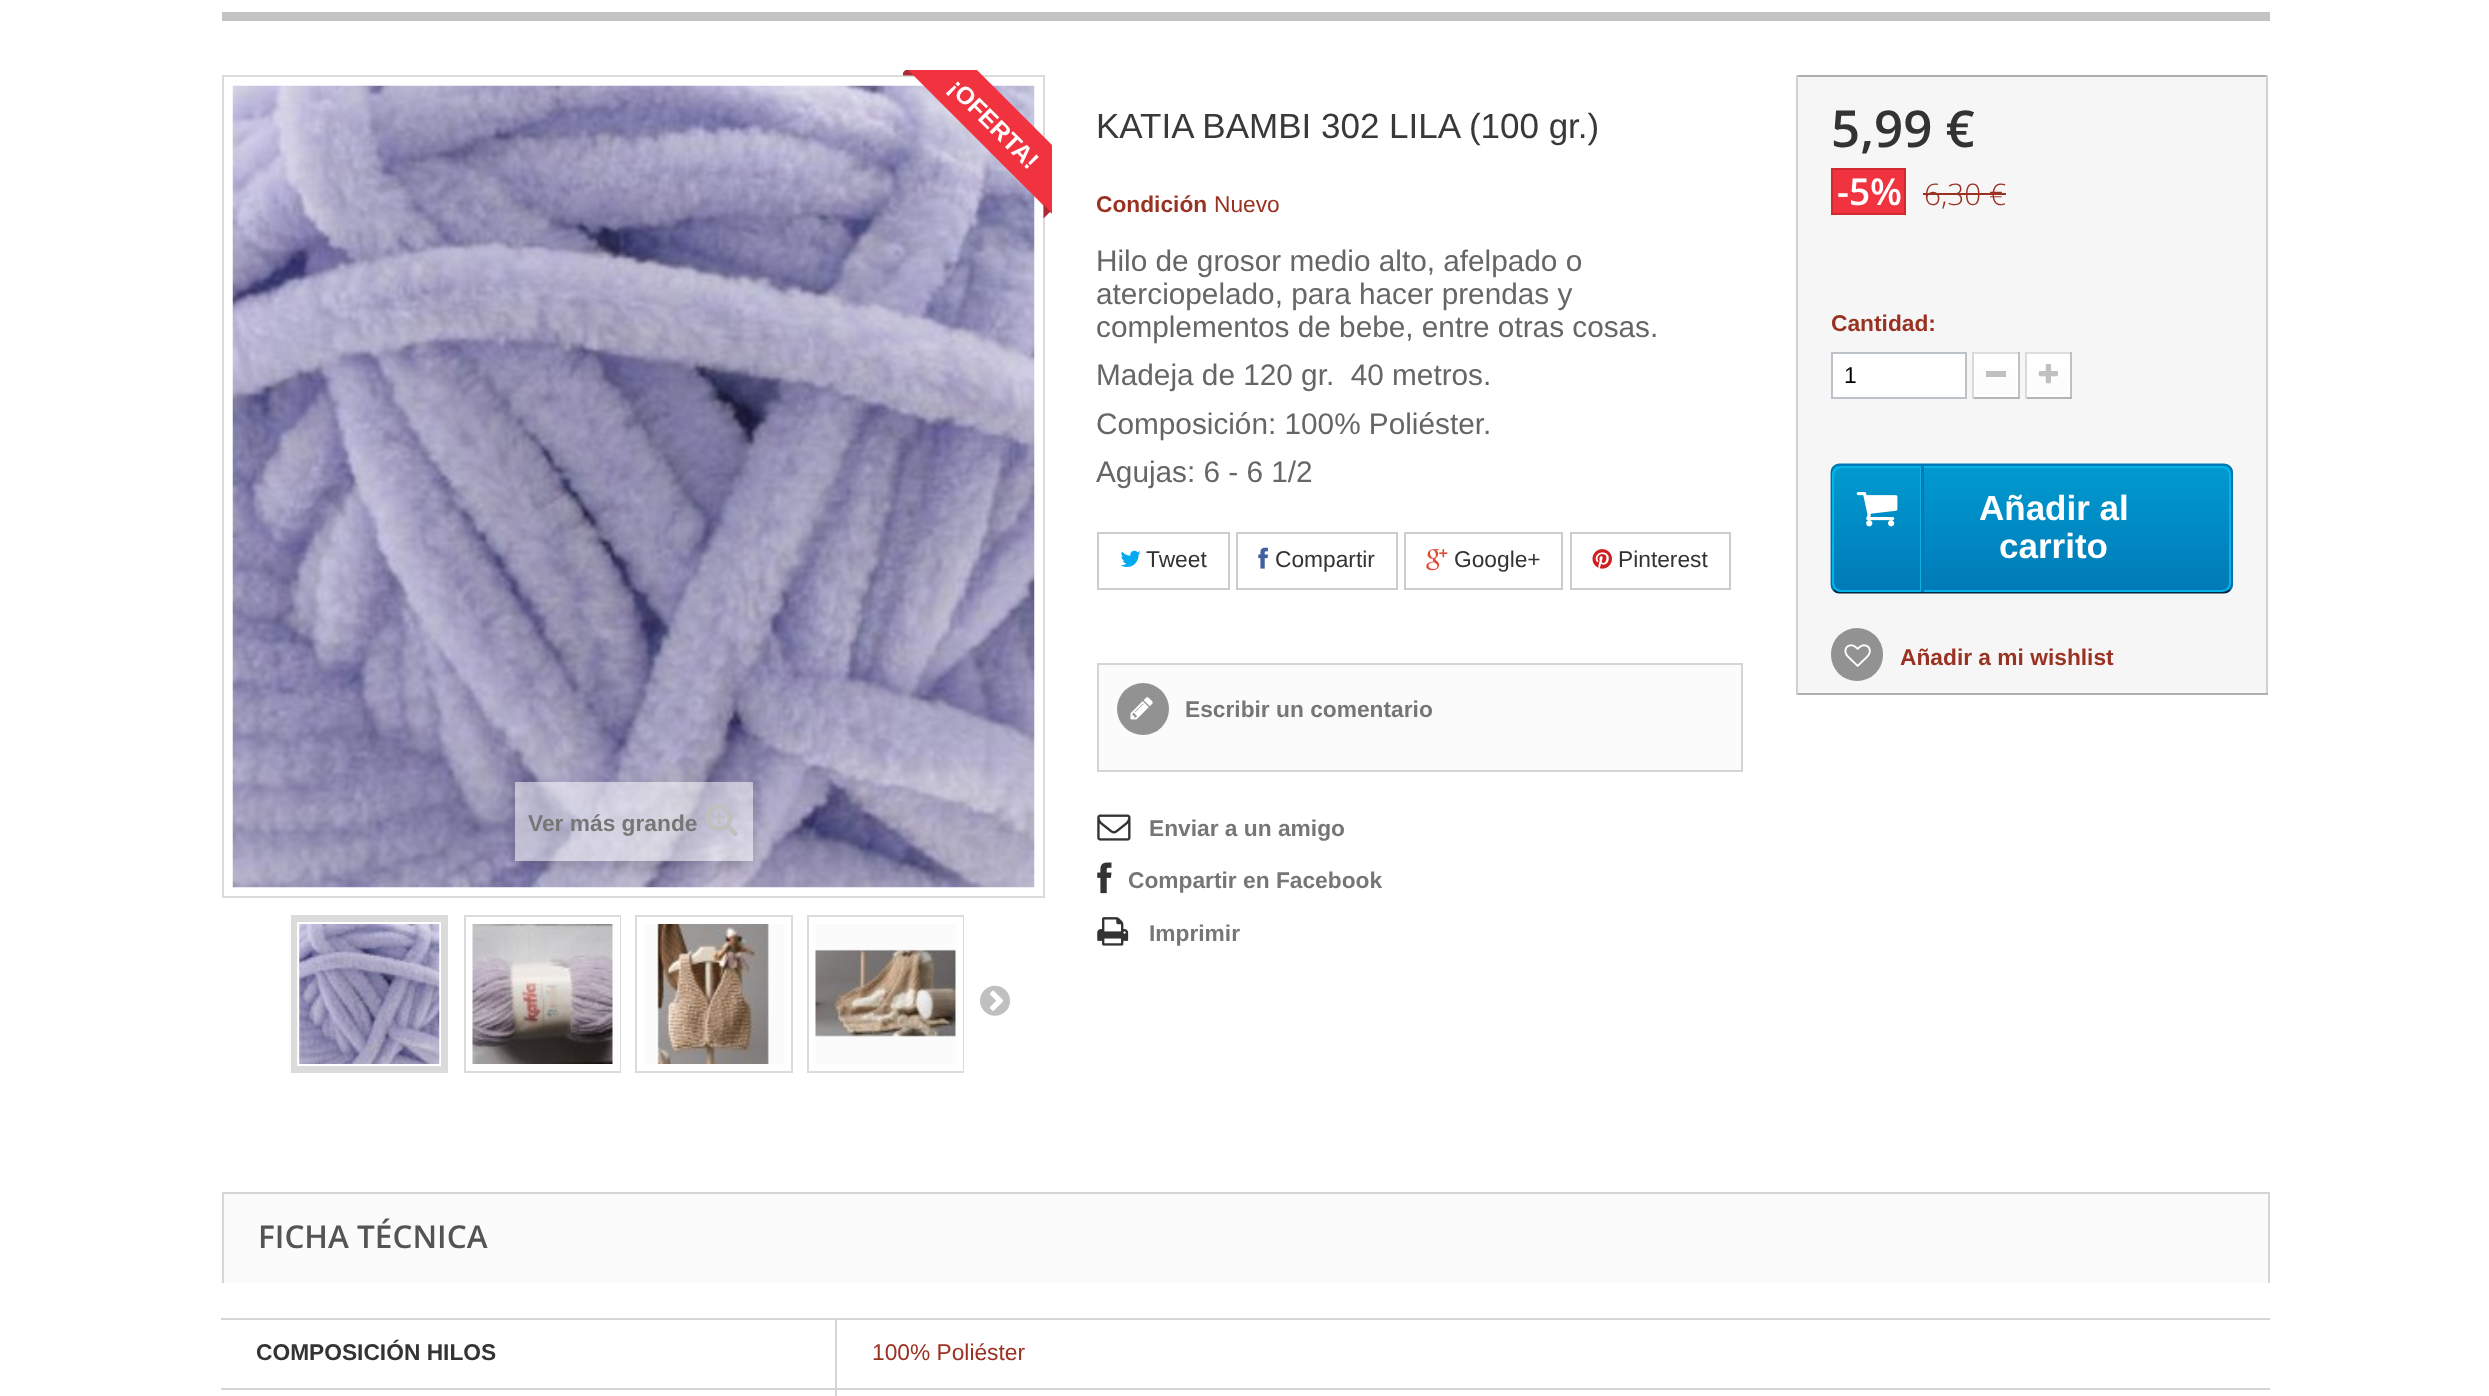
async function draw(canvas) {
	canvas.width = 2489;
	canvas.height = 1396;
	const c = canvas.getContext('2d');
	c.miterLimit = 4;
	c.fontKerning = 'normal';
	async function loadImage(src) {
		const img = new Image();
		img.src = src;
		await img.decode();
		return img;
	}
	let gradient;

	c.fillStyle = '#fff';
	c.fillRect(0, 0, 2489, 1396);
	c.fillStyle = '#c4c4c4';
	c.fillRect(222, 12, 2048, 9);
	c.strokeStyle = '#dbdbdb';
	c.lineWidth = 2;
	c.strokeRect(223, 76, 821, 821);
	c.drawImage(await loadImage('img1.png'), 232, 85, 803, 803);
	c.save();
	c.beginPath();
	c.rect(903, 70, 149, 149);
	c.clip();
	c.fillStyle = '#f13340';
	c.beginPath();
	c.moveTo(932, 25);
	c.lineTo(1093, 186);
	c.lineTo(1058, 220);
	c.lineTo(897, 59);
	c.closePath();
	c.fill();
	c.fillStyle = '#ad2b34';
	c.beginPath();
	c.moveTo(914, 75.5);
	c.lineTo(900, 75.5);
	c.lineTo(907, 68.5);
	c.closePath();
	c.fill();
	c.restore();
	c.font = 'bold 24.5px Liberation Sans';
	c.fillStyle = '#fff';
	c.save();
	c.translate(947, 89);
	c.rotate(45 * Math.PI / 180);
	c.fillText('¡OFERTA!', 0, 0);
	c.restore();
	c.fillStyle = '#ad2b34';
	c.beginPath();
	c.moveTo(1043.5, 218.5);
	c.lineTo(1043.5, 204.5);
	c.lineTo(1050.5, 211.5);
	c.closePath();
	c.fill();
	c.save();
	c.beginPath();
	c.moveTo(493, 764);
	c.lineTo(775, 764);
	c.lineTo(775, 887);
	c.lineTo(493, 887);
	c.closePath();
	c.moveTo(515, 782);
	c.lineTo(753, 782);
	c.lineTo(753, 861);
	c.lineTo(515, 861);
	c.closePath();
	c.clip('evenodd');
	c.fillStyle = '#00000029';
	c.filter = 'blur(7px)';
	c.beginPath();
	c.rect(515, 786, 238, 79);
	c.fill();
	c.filter = 'none';
	c.restore();
	c.fillStyle = '#ffffff80';
	c.fillRect(515, 782, 238, 79);
	c.font = 'bold 22.75px Liberation Sans';
	c.fillStyle = '#777676';
	c.fillText('Ver más grande', 528, 831);
	c.drawImage(await loadImage('img2.png'), 705, 803, 33, 34);
	c.strokeRect(292, 916, 155, 156);
	c.fillStyle = '#fbfbfb';
	c.fillRect(297, 922, 1, 144);
	c.lineWidth = 5;
	c.strokeRect(294.5, 919.5, 149, 149);
	c.drawImage(await loadImage('img3.png'), 299, 924, 141, 140);
	c.lineWidth = 2;
	c.strokeRect(465, 916, 155, 156);
	c.fillRect(614, 922, 1, 144);
	c.strokeStyle = '#fff';
	c.lineWidth = 5;
	c.strokeRect(468.5, 919.5, 149, 149);
	c.drawImage(await loadImage('img4.png'), 472, 924, 141, 140);
	c.strokeStyle = '#dbdbdb';
	c.lineWidth = 2;
	c.strokeRect(636, 916, 156, 156);
	c.fillRect(644, 924, 140, 140);
	c.drawImage(await loadImage('img5.png'), 656, 924, 113, 140);
	c.strokeRect(808, 916, 155, 156);
	c.fillRect(816, 922, 142, 144);
	c.strokeStyle = '#fff';
	c.lineWidth = 5;
	c.strokeRect(811.5, 919.5, 149, 149);
	c.lineWidth = 2;
	c.strokeRect(815, 923, 141, 142);
	c.drawImage(await loadImage('img6.png'), 815, 949, 141, 88);
	c.drawImage(await loadImage('img7.png'), 980, 985, 30, 31);
	c.font = '35px Liberation Sans';
	c.fillStyle = '#3a3939';
	c.fillText('KATIA BAMBI 302 LILA (100 gr.)', 1096, 138);
	c.font = 'bold 22.75px Liberation Sans';
	c.fillStyle = '#993222';
	c.fillText('Condición', 1096, 212);
	c.font = '22.75px Liberation Sans';
	c.fillText('Nuevo', 1214, 212);
	c.font = '29.75px Liberation Sans';
	c.fillStyle = '#666';
	for (const [text, x, y] of [
		['Hilo de grosor medio alto, afelpado o', 1096, 271],
		['aterciopelado, para hacer prendas y', 1096, 304],
		['complementos de bebe, entre otras cosas.', 1096, 337],
		['Madeja de 120 gr.  40 metros.', 1096, 385],
		['Composición: 100% Poliéster.', 1096, 434],
		['Agujas: 6 - 6 1/2', 1096, 482],
	]) {
		c.fillText(text, x, y);
	}
	c.strokeStyle = '#ccc';
	c.strokeRect(1098, 533, 131, 56);
	c.drawImage(await loadImage('img8.png'), 1120, 550, 21, 17);
	c.font = '22.75px Liberation Sans';
	c.fillStyle = '#333';
	c.fillText('Tweet', 1146, 567);
	c.strokeRect(1237, 533, 160, 56);
	c.drawImage(await loadImage('img9.png'), 1258, 547, 10, 22);
	c.fillText('Compartir', 1275, 567);
	c.strokeRect(1405, 533, 157, 56);
	c.drawImage(await loadImage('img10.png'), 1426, 549, 22, 22);
	c.fillText('Google+', 1454, 567);
	c.strokeRect(1571, 533, 159, 56);
	c.drawImage(await loadImage('img11.png'), 1592, 549, 20, 20);
	c.fillText('Pinterest', 1618, 567);
	c.fillStyle = '#fbfbfb';
	c.beginPath();
	c.rect(1098, 664, 644, 107);
	c.fill();
	c.strokeStyle = '#d6d4d4';
	c.stroke();
	c.fillStyle = '#929292';
	c.beginPath();
	c.arc(1143, 709, 26, 0, 2 * Math.PI);
	c.fill();
	c.drawImage(await loadImage('img12.png'), 1130, 697, 23, 23);
	c.font = 'bold 22.75px Liberation Sans';
	c.fillStyle = '#777676';
	c.fillText('Escribir un comentario', 1185, 717);
	c.drawImage(await loadImage('img13.png'), 1097, 814, 34, 27);
	c.fillText('Enviar a un amigo', 1149, 836);
	c.drawImage(await loadImage('img14.png'), 1097, 862, 15, 32);
	c.fillText('Compartir en Facebook', 1128, 888);
	c.drawImage(await loadImage('img15.png'), 1097, 917, 32, 29);
	c.fillText('Imprimir', 1149, 941);
	for (const [x, y, w, h, color] of [
		[1798, 77, 468, 616, '#f6f6f6'],
		[1796, 75, 472, 2, '#b0afaf'],
		[2266, 75, 2, 620, '#d2d0d0'],
		[1796, 693, 472, 2, '#b0afaf'],
		[1796, 75, 2, 620, '#d2d0d0'],
	]) {
		c.fillStyle = color;
		c.fillRect(x, y, w, h);
	}
	c.font = '600 51px Open Sans';
	c.fillStyle = '#333';
	c.fillText('5,99 €', 1831, 147);
	c.fillStyle = '#f13340';
	c.beginPath();
	c.rect(1832, 169, 73, 45);
	c.fill();
	c.strokeStyle = '#d02a2c';
	c.stroke();
	c.font = '600 37px Open Sans';
	c.fillStyle = '#fff';
	c.fillText('-5%', 1837, 205);
	c.font = '300 29.75px Open Sans';
	c.fillStyle = '#993222';
	c.fillText('6,30 €', 1924, 205);
	c.fillRect(1923, 193, 83, 2);
	c.font = 'bold 22.75px Liberation Sans';
	c.fillText('Cantidad:', 1831, 331);
	c.fillStyle = '#fff';
	c.beginPath();
	c.rect(1832, 353, 134, 45);
	c.fill();
	c.strokeStyle = '#bdc2c9';
	c.stroke();
	c.font = '22.75px Liberation Sans';
	c.fillStyle = '#000';
	c.fillText('1', 1844, 383);
	for (const [x, y, w, h, color] of [
		[1972, 352, 48, 2, '#dedcdc'],
		[2018, 352, 2, 47, '#c1bfbf'],
		[1972, 397, 48, 2, '#b5b4b4'],
		[1972, 352, 2, 47, '#dad8d8'],
	]) {
		c.fillStyle = color;
		c.fillRect(x, y, w, h);
	}
	gradient = c.createLinearGradient(1996, 355, 1996, 396);
	gradient.addColorStop(0, '#fff');
	gradient.addColorStop(1, '#fbfbfb');
	c.fillStyle = gradient;
	c.fillRect(1976, 356, 40, 39);
	c.strokeStyle = '#fff';
	c.strokeRect(1975, 355, 42, 41);
	for (const [x, y, w, h, color] of [
		[1986, 371, 20, 6, '#c0c0c0'],
		[2025, 352, 47, 2, '#dedcdc'],
		[2070, 352, 2, 47, '#c1bfbf'],
		[2025, 397, 47, 2, '#b5b4b4'],
		[2025, 352, 2, 47, '#dad8d8'],
	]) {
		c.fillStyle = color;
		c.fillRect(x, y, w, h);
	}
	gradient = c.createLinearGradient(2048, 355, 2048, 396);
	gradient.addColorStop(0, '#fff');
	gradient.addColorStop(1, '#fbfbfb');
	c.fillStyle = gradient;
	c.fillRect(2029, 356, 39, 39);
	c.strokeRect(2028, 355, 41, 41);
	c.drawImage(await loadImage('img16.png'), 2038, 364, 20, 20);
	c.save();
	c.beginPath();
	c.roundRect(1831, 464, 402, 129, 9);
	c.clip();
	gradient = c.createLinearGradient(2032, 340, 2032, 466);
	gradient.addColorStop(0, '#009ad0');
	gradient.addColorStop(1, '#007ab7');
	c.fillStyle = gradient;
	c.fillRect(1831, 464, 402, 2);
	gradient = c.createLinearGradient(2032, 466, 2032, 592);
	gradient.addColorStop(0, '#009ad0');
	gradient.addColorStop(1, '#007ab7');
	c.fillStyle = gradient;
	c.fillRect(1831, 466, 402, 126);
	c.restore();
	c.beginPath();
	c.moveTo(1833.5, 467);
	c.bezierCurveTo(1835, 465.5, 1837, 464.5, 1839, 464.5);
	c.lineTo(2224, 464.5);
	c.bezierCurveTo(2226.5, 464.5, 2228.5, 465.5, 2230, 467);
	c.strokeStyle = '#0079b6';
	c.lineWidth = 1.8;
	c.stroke();
	c.beginPath();
	c.moveTo(2230, 467);
	c.bezierCurveTo(2231.5, 468.5, 2232, 470.5, 2232, 472.5);
	c.lineTo(2232, 584.5);
	c.bezierCurveTo(2232, 586.5, 2231.5, 588.5, 2230, 590);
	c.strokeStyle = '#006fa8';
	c.stroke();
	c.beginPath();
	c.moveTo(2230, 590);
	c.bezierCurveTo(2228.5, 591.5, 2226.5, 592.5, 2224, 592.5);
	c.lineTo(1839, 592.5);
	c.bezierCurveTo(1837, 592.5, 1835, 591.5, 1833.5, 590);
	c.strokeStyle = '#012740';
	c.stroke();
	c.beginPath();
	c.moveTo(1833.5, 590);
	c.bezierCurveTo(1832, 588.5, 1831.5, 586.5, 1831.5, 584.5);
	c.lineTo(1831.5, 472.5);
	c.bezierCurveTo(1831.5, 470.5, 1832, 468.5, 1833.5, 467);
	c.strokeStyle = '#006fa8';
	c.stroke();
	c.beginPath();
	c.roundRect(1833, 467, 397, 124, 8);
	c.strokeStyle = '#06b2e6';
	c.lineWidth = 2;
	c.stroke();
	c.beginPath();
	c.roundRect(1833, 467, 88, 124, [8, 0, 0, 8]);
	c.stroke();
	c.drawImage(await loadImage('img17.png'), 1856, 492, 42, 35);
	c.fillStyle = '#0079b6';
	c.fillRect(1921, 466, 3, 126);
	c.font = 'bold 35px Liberation Sans';
	c.fillStyle = '#fff';
	c.fillText('Añadir al', 1979, 520);
	c.fillText('carrito', 1999, 558);
	c.fillStyle = '#929292';
	c.beginPath();
	c.roundRect(1831, 628, 52, 53, 26);
	c.fill();
	c.drawImage(await loadImage('img18.png'), 1844, 644, 27, 23);
	c.font = 'bold 22.75px Liberation Sans';
	c.fillStyle = '#993222';
	c.fillText('Añadir a mi wishlist', 1900, 665);
	for (const [x, y, w, h, color] of [
		[224, 1194, 2044, 89, '#fbfbfb'],
		[222, 1192, 2048, 2, '#d6d4d4'],
		[2268, 1192, 2, 91, '#d6d4d4'],
		[222, 1192, 2, 91, '#d6d4d4'],
	]) {
		c.fillStyle = color;
		c.fillRect(x, y, w, h);
	}
	c.font = '600 31.5px Open Sans';
	c.fillStyle = '#555454';
	c.fillText('FICHA TÉCNICA', 258, 1248);
	for (const [x, y, w, h, color] of [
		[221, 1388, 2049, 2, '#d6d4d4'],
		[221, 1318, 2049, 2, '#d6d4d4'],
		[835, 1318, 2, 78, '#d6d4d4'],
	]) {
		c.fillStyle = color;
		c.fillRect(x, y, w, h);
	}
	c.font = 'bold 22.75px Liberation Sans';
	c.fillStyle = '#333';
	c.fillText('COMPOSICIÓN HILOS', 256, 1360);
	c.font = '22.75px Liberation Sans';
	c.fillStyle = '#993222';
	c.fillText('100% Poliéster', 872, 1360);
}

draw(document.querySelector('canvas'));
